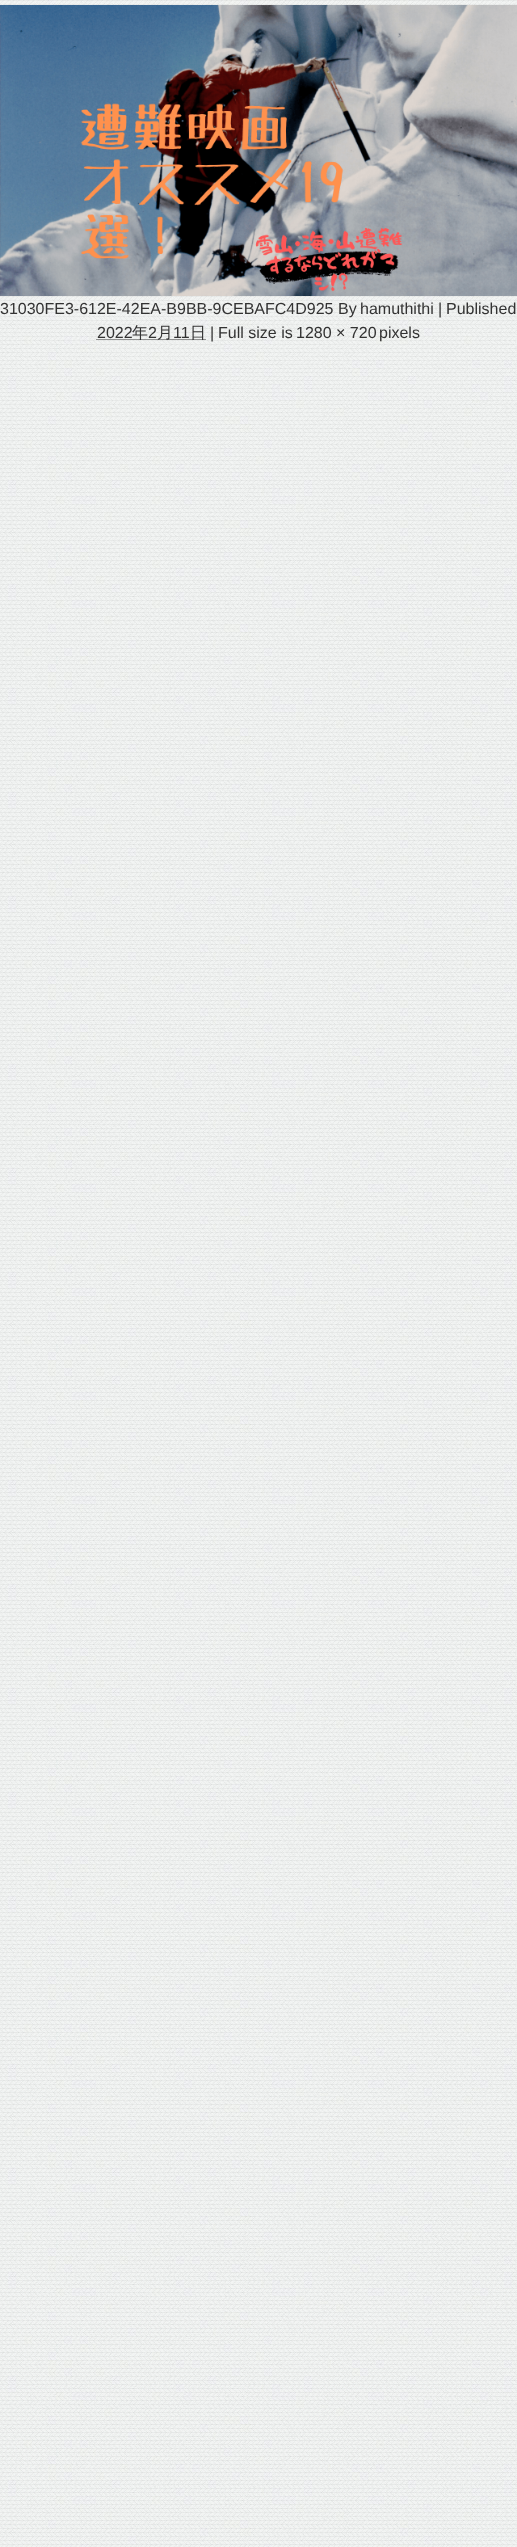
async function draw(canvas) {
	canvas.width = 517;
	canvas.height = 2547;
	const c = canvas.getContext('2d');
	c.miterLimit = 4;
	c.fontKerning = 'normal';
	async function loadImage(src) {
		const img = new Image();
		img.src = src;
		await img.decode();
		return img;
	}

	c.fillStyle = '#fff';
	c.fillRect(0, 0, 517, 2547);
	c.drawImage(await loadImage('img1.png'), 0, 0, 517, 2547);
	c.drawImage(await loadImage('img2.png'), 0, 5, 517, 291);
	c.font = '16px Liberation Sans';
	c.fillStyle = '#333';
	for (const [text, x, y] of [
		['31030FE3-612E-42EA-B9BB-9CEBAFC4D925', 0, 314],
		['By', 338, 314],
		['hamuthithi', 360, 314],
		['|', 438, 314],
		['Published', 446, 314],
		['2022', 97, 338],
	]) {
		c.fillText(text, x, y);
	}
	c.beginPath();
	c.moveTo(96.5, 339.5);
	c.lineTo(206, 339.5);
	c.strokeStyle = '#333';
	c.setLineDash([1, 1]);
	c.stroke();
	c.font = '500 16px WenQuanYi Zen Hei';
	c.fillText('年', 132, 338);
	c.font = '16px Liberation Sans';
	c.fillText('2', 148, 338);
	c.font = '500 16px WenQuanYi Zen Hei';
	c.fillText('月', 157, 338);
	c.font = '16px Liberation Sans';
	c.fillText('11', 173, 338);
	c.font = '500 16px WenQuanYi Zen Hei';
	c.fillText('日', 190, 338);
	c.font = '16px Liberation Sans';
	for (const [text, x, y] of [
		['|', 210, 338],
		['Full size is', 218, 338],
		['1280 × 720', 296, 338],
		['pixels', 379, 338],
	]) {
		c.fillText(text, x, y);
	}
}

draw(document.querySelector('canvas'));
